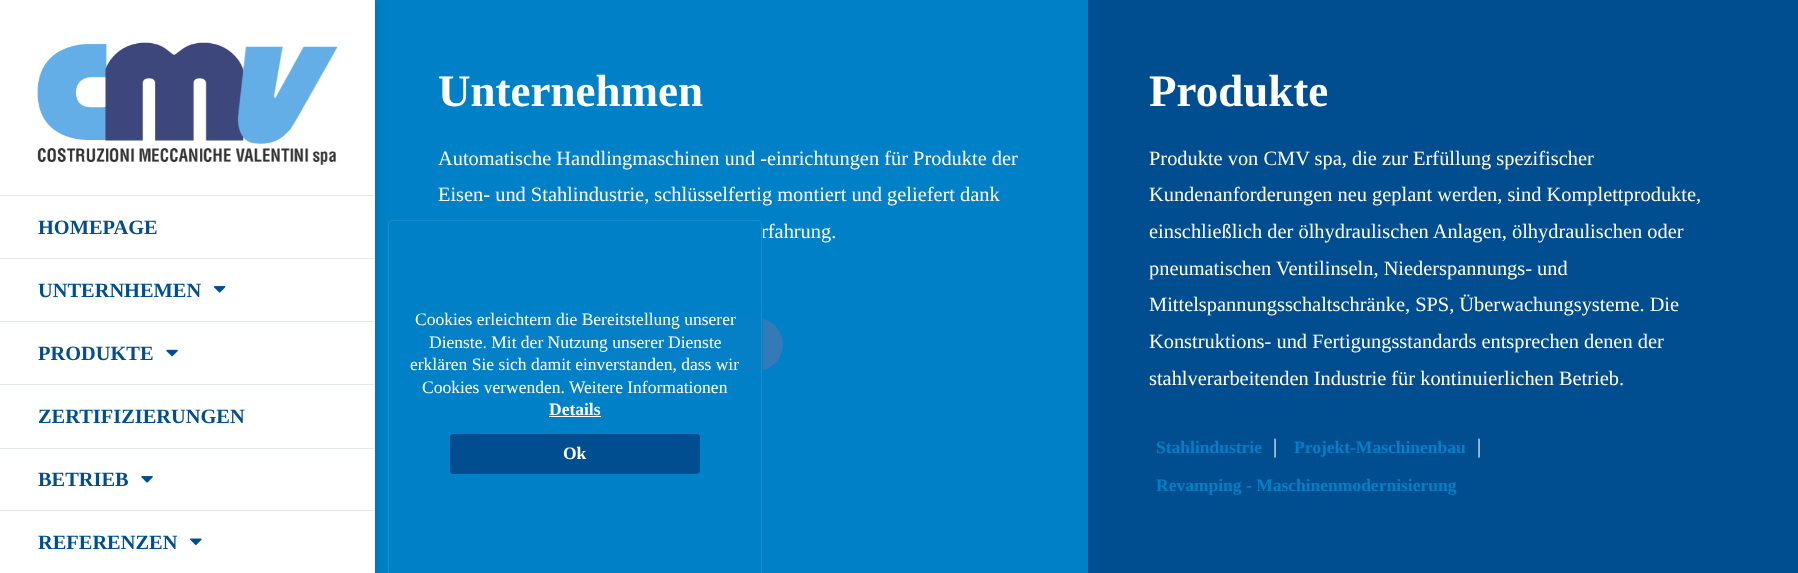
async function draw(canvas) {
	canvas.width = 1798;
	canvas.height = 573;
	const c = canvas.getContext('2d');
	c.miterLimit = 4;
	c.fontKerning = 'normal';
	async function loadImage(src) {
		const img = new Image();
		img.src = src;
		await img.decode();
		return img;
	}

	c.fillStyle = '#0080c6';
	c.fillRect(0, 0, 1798, 573);
	c.fillStyle = '#00000026';
	c.filter = 'blur(5px)';
	c.beginPath();
	c.rect(0, 0, 375, 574);
	c.fill();
	c.filter = 'none';
	c.fillStyle = '#fff';
	c.fillRect(0, 0, 375, 573);
	c.drawImage(await loadImage('img1.png'), 37, 42, 301, 123);
	c.fillStyle = '#e3e9ed';
	c.fillRect(0, 195, 375, 1);
	c.font = 'bold 20.4px Liberation Serif';
	c.fillStyle = '#004e8f';
	c.fillText('HOMEPAGE', 38, 234);
	c.fillStyle = '#e3e9ed';
	c.fillRect(0, 258, 375, 1);
	c.fillStyle = '#004e8f';
	c.fillText('UNTERNHEMEN', 38, 297);
	c.drawImage(await loadImage('img2.png'), 213, 286, 13, 7);
	c.fillStyle = '#e3e9ed';
	c.fillRect(0, 321, 375, 1);
	c.fillStyle = '#004e8f';
	c.fillText('PRODUKTE', 38, 360);
	c.drawImage(await loadImage('img3.png'), 166, 349, 12, 8);
	c.fillStyle = '#e3e9ed';
	c.fillRect(0, 384, 375, 1);
	c.fillStyle = '#004e8f';
	c.fillText('ZERTIFIZIERUNGEN', 38, 423);
	c.fillStyle = '#e3e9ed';
	c.fillRect(0, 448, 375, 1);
	c.fillStyle = '#004e8f';
	c.fillText('BETRIEB', 38, 486);
	c.drawImage(await loadImage('img4.png'), 141, 476, 12, 7);
	c.fillStyle = '#e3e9ed';
	c.fillRect(0, 510, 375, 1);
	c.fillStyle = '#004e8f';
	c.fillText('REFERENZEN', 38, 549);
	c.drawImage(await loadImage('img5.png'), 190, 538, 12, 8);
	c.font = 'bold 45px Liberation Serif';
	c.fillStyle = '#fff';
	c.fillText('Unternehmen', 438, 106);
	c.font = '20.4px Liberation Serif';
	for (const [text, x, y] of [
		['Automatische Handlingmaschinen und -einrichtungen für Produkte der', 438, 165],
		['Eisen- und Stahlindustrie, schlüsselfertig montiert und geliefert dank', 438, 201],
		['rfahrung.', 761, 238],
	]) {
		c.fillText(text, x, y);
	}
	c.fillStyle = '#337ab7';
	c.beginPath();
	c.roundRect(438, 318, 345, 53, 26.5);
	c.fill();
	c.fillStyle = '#004e8f';
	c.fillRect(1088, 0, 710, 573);
	c.font = 'bold 45px Liberation Serif';
	c.fillStyle = '#fff';
	c.fillText('Produkte', 1149, 106);
	c.font = '20.4px Liberation Serif';
	for (const [text, x, y] of [
		['Produkte von CMV spa, die zur Erfüllung spezifischer', 1149, 165],
		['Kundenanforderungen neu geplant werden, sind Komplettprodukte,', 1149, 201],
		['einschließlich der ölhydraulischen Anlagen, ölhydraulischen oder', 1149, 238],
		['pneumatischen Ventilinseln, Niederspannungs- und', 1149, 275],
		['Mittelspannungsschaltschränke, SPS, Überwachungsysteme. Die', 1149, 311],
		['Konstruktions- und Fertigungsstandards entsprechen denen der', 1149, 348],
		['stahlverarbeitenden Industrie für kontinuierlichen Betrieb.', 1149, 385],
	]) {
		c.fillText(text, x, y);
	}
	c.font = 'bold 17.5px Liberation Serif';
	c.fillStyle = '#0080c6';
	c.fillText('Stahlindustrie', 1156, 453);
	c.font = '20.4px Liberation Serif';
	c.fillStyle = '#fff';
	c.fillText('|', 1273, 453);
	c.font = 'bold 17.5px Liberation Serif';
	c.fillStyle = '#0080c6';
	c.fillText('Projekt-Maschinenbau', 1294, 453);
	c.font = '20.4px Liberation Serif';
	c.fillStyle = '#fff';
	c.fillText('|', 1477, 453);
	c.font = 'bold 17.5px Liberation Serif';
	c.fillStyle = '#0080c6';
	c.fillText('Revamping - Maschinenmodernisierung', 1156, 491);
	c.fillStyle = '#0080c6e6';
	c.beginPath();
	c.moveTo(393, 220);
	c.lineTo(758, 220);
	c.bezierCurveTo(761, 220, 763, 222, 763, 225);
	c.lineTo(763, 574);
	c.lineTo(388, 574);
	c.lineTo(388, 225);
	c.bezierCurveTo(388, 222, 390, 220, 393, 220);
	c.closePath();
	c.fill();
	c.fillStyle = '#ffffff1a';
	c.beginPath();
	c.moveTo(392, 220);
	c.lineTo(758, 220);
	c.bezierCurveTo(760, 220, 762, 222, 762, 225);
	c.lineTo(762, 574);
	c.lineTo(388, 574);
	c.lineTo(388, 225);
	c.bezierCurveTo(388, 222, 390, 220, 392, 220);
	c.closePath();
	c.moveTo(392, 221);
	c.lineTo(758, 221);
	c.bezierCurveTo(760, 221, 761, 223, 761, 225);
	c.lineTo(761, 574);
	c.lineTo(389, 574);
	c.lineTo(389, 225);
	c.bezierCurveTo(389, 223, 390, 221, 392, 221);
	c.closePath();
	c.fill('evenodd');
	c.font = '17.5px Liberation Serif';
	c.fillStyle = '#fff';
	for (const [text, x, y] of [
		['Cookies erleichtern die Bereitstellung unserer', 415, 325],
		['Dienste. Mit der Nutzung unserer Dienste', 429, 348],
		['erklären Sie sich damit einverstanden, dass wir', 410, 370],
		['Cookies verwenden. Weitere Informationen', 422, 393],
	]) {
		c.fillText(text, x, y);
	}
	c.font = 'bold 17.5px Liberation Serif';
	c.fillText('Details', 549, 415);
	c.fillRect(549, 416, 52, 1);
	c.fillStyle = '#004e8f';
	c.beginPath();
	c.roundRect(450, 434, 250, 40, 4);
	c.fill();
	c.fillStyle = '#fff';
	c.fillText('Ok', 563, 459);
}

draw(document.querySelector('canvas'));
